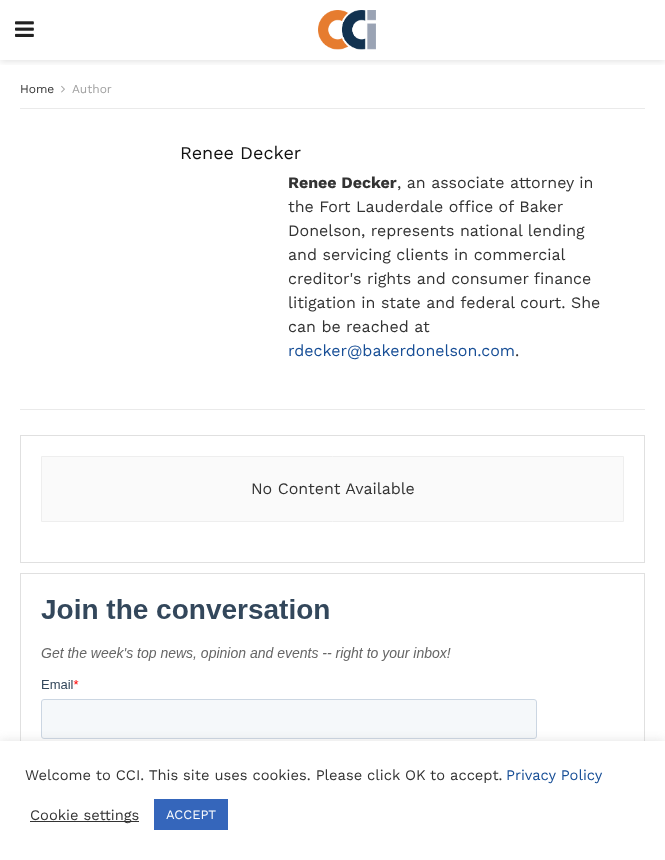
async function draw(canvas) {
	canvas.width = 665;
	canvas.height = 860;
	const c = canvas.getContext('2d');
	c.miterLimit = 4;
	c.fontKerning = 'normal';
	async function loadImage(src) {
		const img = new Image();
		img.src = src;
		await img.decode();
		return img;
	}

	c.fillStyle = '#fff';
	c.fillRect(0, 0, 665, 860);
	c.save();
	c.beginPath();
	c.rect(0, 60, 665, 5);
	c.clip();
	c.fillStyle = '#0000001a';
	c.filter = 'blur(3px)';
	c.beginPath();
	c.rect(0, 2, 665, 60);
	c.fill();
	c.filter = 'none';
	c.restore();
	c.drawImage(await loadImage('img1.png'), 15, 21, 19, 16);
	c.drawImage(await loadImage('img2.png'), 318, 10, 58, 40);
	c.font = '12px Work Sans';
	c.fillStyle = '#333';
	c.fillText('Home', 20, 93);
	c.drawImage(await loadImage('img3.png'), 61, 85, 4, 8);
	c.fillStyle = '#a0a0a0';
	c.fillText('Author', 72, 93);
	c.fillStyle = '#eaeaea';
	c.fillRect(20, 108, 625, 1);
	c.fillRect(20, 409, 625, 1);
	c.font = '18px Work Sans';
	c.fillStyle = '#111';
	c.fillText('Renee Decker', 180, 159);
	c.font = 'bold 16px Work Sans';
	c.fillStyle = '#333';
	c.fillText('Renee Decker', 288, 188);
	c.font = '16px Work Sans';
	for (const [text, x, y] of [
		[', an associate attorney in', 397, 188],
		['the Fort Lauderdale office of Baker', 288, 212],
		['Donelson, represents national lending', 288, 236],
		['and servicing clients in commercial', 288, 260],
		['creditor\'s rights and consumer finance', 288, 284],
		['litigation in state and federal court. She', 288, 308],
		['can be reached at', 288, 332],
	]) {
		c.fillText(text, x, y);
	}
	c.fillStyle = '#174e96';
	c.fillText('rdecker@bakerdonelson.com', 288, 356);
	c.fillStyle = '#333';
	c.fillText('.', 515, 356);
	c.strokeStyle = '#e0e0e0';
	c.strokeRect(20.5, 435.5, 624, 127);
	c.fillStyle = '#fafafa';
	c.beginPath();
	c.rect(41.5, 456.5, 582, 65);
	c.fill();
	c.strokeStyle = '#eee';
	c.stroke();
	c.fillStyle = '#333';
	c.fillText('No Content Available', 251, 494);
	c.strokeStyle = '#e0e0e0';
	c.strokeRect(20.5, 573.5, 624, 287);
	c.drawImage(await loadImage('img4.png'), 41, 599, 496, 140);
	c.fillStyle = '#acabab4d';
	c.filter = 'blur(5px)';
	c.beginPath();
	c.rect(0, 740, 665, 119);
	c.fill();
	c.filter = 'none';
	c.fillStyle = '#fff';
	c.fillRect(0, 741, 665, 119);
	c.font = '14.7px Work Sans';
	c.fillStyle = '#333';
	c.fillText('Welcome to CCI. This site uses cookies. Please click OK to accept.', 25, 780);
	c.fillStyle = '#174e96';
	c.fillText('Privacy Policy', 506, 780);
	c.fillStyle = '#333';
	c.fillRect(30, 821, 109, 1);
	c.fillText('Cookie settings', 30, 820);
	c.fillStyle = '#3566bb';
	c.fillRect(154, 799, 74, 31);
	c.font = '13px Work Sans';
	c.fillStyle = '#fff';
	c.fillText('ACCEPT', 166, 819);
}

draw(document.querySelector('canvas'));
